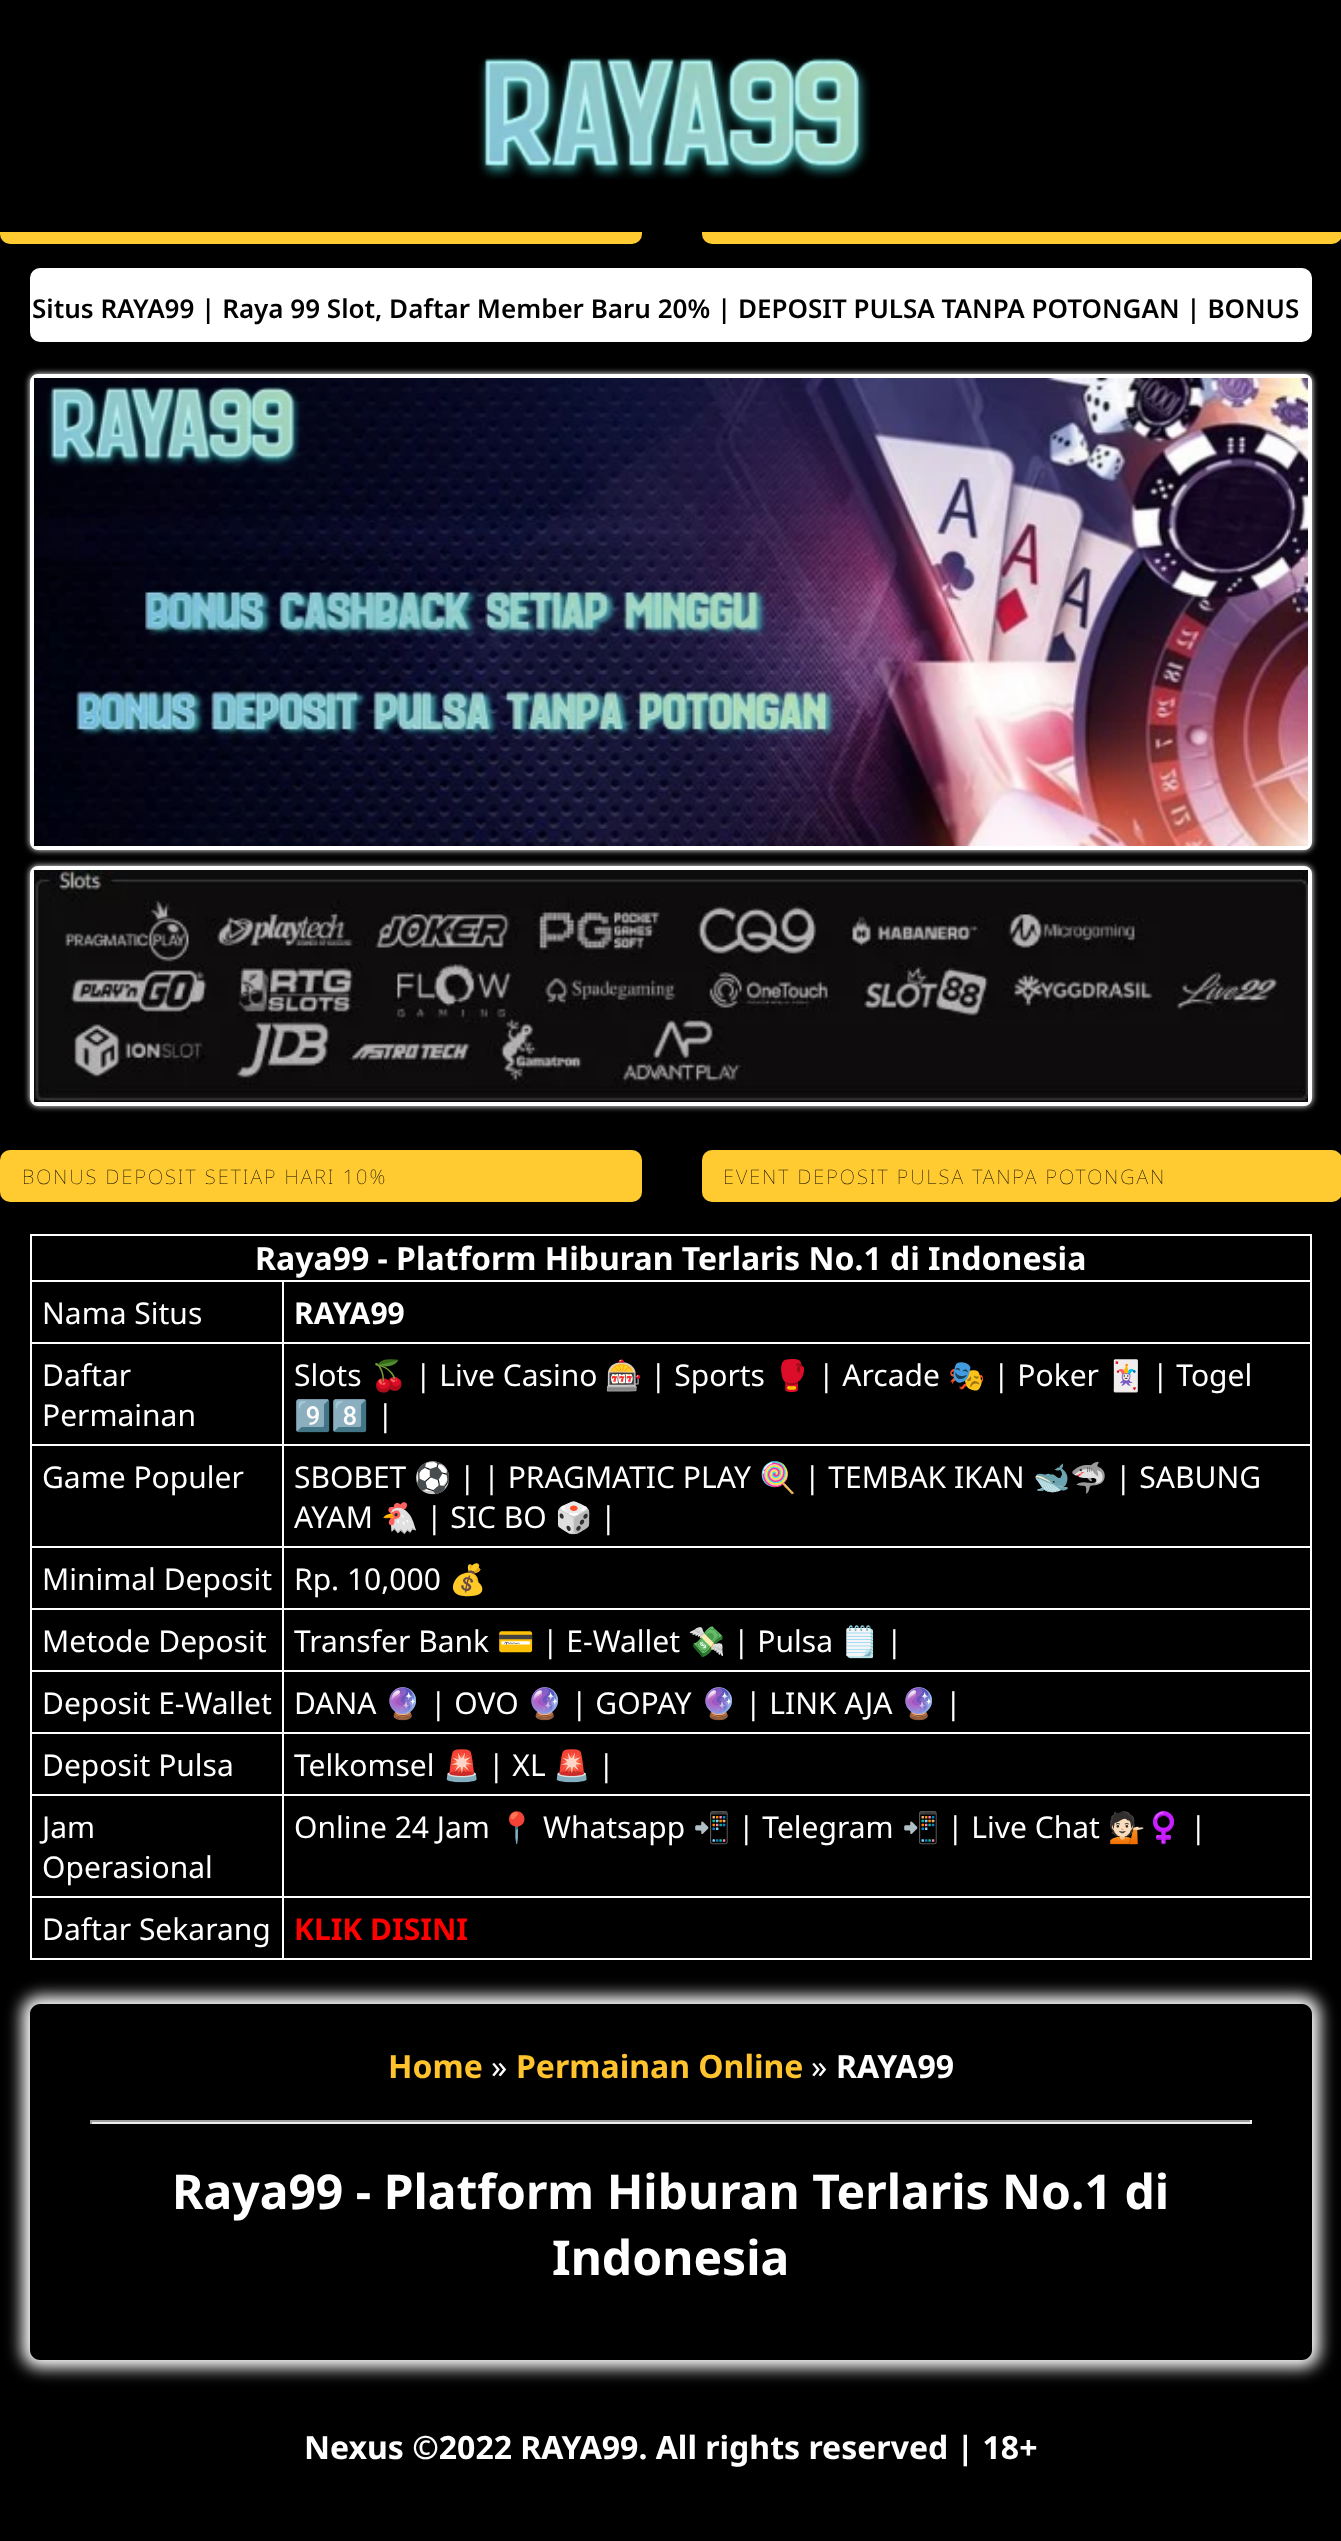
async function draw(canvas) {
	canvas.width = 1341;
	canvas.height = 2541;
	const c = canvas.getContext('2d');
	c.miterLimit = 4;
	c.fontKerning = 'normal';
	async function loadImage(src) {
		const img = new Image();
		img.src = src;
		await img.decode();
		return img;
	}

	c.fillStyle = '#000';
	c.fillRect(0, 0, 1341, 2541);
	c.fillStyle = '#ffcb30';
	c.beginPath();
	c.roundRect(0, 164, 642, 80, 10);
	c.fill();
	c.beginPath();
	c.roundRect(702, 164, 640, 80, 10);
	c.fill();
	c.fillStyle = '#000';
	c.fillRect(0, 164, 1341, 68);
	c.drawImage(await loadImage('img1.png'), 478, 55, 392, 124);
	c.fillStyle = '#fff';
	c.beginPath();
	c.roundRect(31, 269, 1280, 72, 9);
	c.fill();
	c.strokeStyle = '#fff';
	c.lineWidth = 2;
	c.stroke();
	c.font = '600 26px Noto Sans';
	c.fillStyle = '#000';
	c.fillText('Situs RAYA99 | Raya 99 Slot, Daftar Member Baru 20% | DEPOSIT PULSA TANPA POTONGAN | BONUS', 32, 318);
	c.fillStyle = '#fff';
	c.filter = 'blur(3px)';
	c.beginPath();
	c.roundRect(30, 374, 1282, 476, 8);
	c.fill();
	c.filter = 'none';
	c.beginPath();
	c.roundRect(32, 376, 1278, 472, 6);
	c.lineWidth = 4;
	c.stroke();
	c.drawImage(await loadImage('img2.png'), 34, 378, 1274, 468);
	c.filter = 'blur(3px)';
	c.beginPath();
	c.roundRect(30, 866, 1282, 240, 8);
	c.fill();
	c.filter = 'none';
	c.beginPath();
	c.roundRect(32, 868, 1278, 236, 6);
	c.stroke();
	c.drawImage(await loadImage('img3.png'), 34, 870, 1274, 232);
	c.fillStyle = '#ffcb30';
	c.beginPath();
	c.roundRect(0, 1150, 642, 52, 10);
	c.fill();
	c.letterSpacing = '2px';
	c.font = '100 20px Noto Sans';
	c.fillStyle = '#000';
	c.fillText('BONUS DEPOSIT SETIAP HARI 10%', 22, 1184);
	c.fillStyle = '#ffcb30';
	c.beginPath();
	c.roundRect(702, 1150, 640, 52, 10);
	c.fill();
	c.fillStyle = '#000';
	c.fillText('EVENT DEPOSIT PULSA TANPA POTONGAN', 723, 1184);
	for (const [x, y, w, h, color] of [
		[30, 1234, 1282, 2, '#fff'],
		[282, 1280, 1030, 2, '#fff'],
		[282, 1342, 1030, 2, '#fff'],
		[282, 1444, 1030, 2, '#fff'],
		[282, 1546, 1030, 2, '#fff'],
		[282, 1608, 1030, 2, '#fff'],
		[282, 1670, 1030, 2, '#fff'],
		[282, 1732, 1030, 2, '#fff'],
		[282, 1794, 1030, 2, '#fff'],
		[282, 1896, 1030, 2, '#fff'],
		[1310, 1896, 2, 64, '#fff'],
		[1310, 1794, 2, 104, '#fff'],
		[1310, 1732, 2, 64, '#fff'],
		[1310, 1670, 2, 64, '#fff'],
		[1310, 1608, 2, 64, '#fff'],
		[1310, 1546, 2, 64, '#fff'],
		[1310, 1444, 2, 104, '#fff'],
		[1310, 1342, 2, 104, '#fff'],
		[1310, 1280, 2, 64, '#fff'],
		[1310, 1234, 2, 48, '#fff'],
		[282, 1958, 1030, 2, '#fff'],
		[282, 1896, 2, 64, '#fff'],
		[30, 1896, 254, 2, '#fff'],
		[282, 1794, 2, 104, '#fff'],
		[30, 1794, 254, 2, '#fff'],
		[282, 1732, 2, 64, '#fff'],
		[30, 1732, 254, 2, '#fff'],
		[282, 1670, 2, 64, '#fff'],
		[30, 1670, 254, 2, '#fff'],
		[282, 1608, 2, 64, '#fff'],
		[30, 1608, 254, 2, '#fff'],
		[282, 1546, 2, 64, '#fff'],
		[30, 1546, 254, 2, '#fff'],
		[282, 1444, 2, 104, '#fff'],
		[30, 1444, 254, 2, '#fff'],
		[282, 1342, 2, 104, '#fff'],
		[30, 1342, 254, 2, '#fff'],
		[282, 1280, 2, 64, '#fff'],
		[30, 1280, 254, 2, '#fff'],
		[30, 1958, 254, 2, '#fff'],
		[30, 1896, 2, 64, '#fff'],
		[30, 1794, 2, 104, '#fff'],
		[30, 1732, 2, 64, '#fff'],
		[30, 1670, 2, 64, '#fff'],
		[30, 1608, 2, 64, '#fff'],
		[30, 1546, 2, 64, '#fff'],
		[30, 1444, 2, 104, '#fff'],
		[30, 1342, 2, 104, '#fff'],
		[30, 1280, 2, 64, '#fff'],
		[30, 1234, 2, 48, '#fff'],
	]) {
		c.fillStyle = color;
		c.fillRect(x, y, w, h);
	}
	c.letterSpacing = '0px';
	c.font = 'bold 32px Noto Sans';
	c.fillText('Raya99 - Platform Hiburan Terlaris No.1 di Indonesia', 255, 1270);
	c.font = '30px Noto Sans';
	c.fillText('Nama Situs', 42, 1324);
	c.font = 'bold 30px Noto Sans';
	c.fillText('RAYA99', 294, 1324);
	c.font = '30px Noto Sans';
	for (const [text, x, y] of [
		['Daftar', 42, 1386],
		['Permainan', 42, 1426],
		['Slots', 294, 1386],
	]) {
		c.fillText(text, x, y);
	}
	c.font = '30px Noto Color Emoji';
	c.fillText('🍒', 370, 1386);
	c.font = '30px Noto Sans';
	c.fillText('| Live Casino', 415, 1386);
	c.font = '30px Noto Color Emoji';
	c.fillText('🎰', 605, 1386);
	c.font = '30px Noto Sans';
	c.fillText('| Sports', 650, 1386);
	c.font = '30px Noto Color Emoji';
	c.fillText('🥊', 773, 1386);
	c.font = '30px Noto Sans';
	c.fillText('| Arcade', 818, 1386);
	c.font = '30px Noto Color Emoji';
	c.fillText('🎭', 948, 1386);
	c.font = '30px Noto Sans';
	c.fillText('| Poker', 993, 1386);
	c.font = '30px Noto Color Emoji';
	c.fillText('🃏', 1107, 1386);
	c.font = '30px Noto Sans';
	c.fillText('| Togel', 1152, 1386);
	c.font = '30px Noto Color Emoji';
	c.fillText('9️⃣8️⃣', 294, 1426);
	c.font = '30px Noto Sans';
	for (const [text, x, y] of [
		['|', 377, 1426],
		['Game Populer', 42, 1488],
		['SBOBET', 294, 1488],
	]) {
		c.fillText(text, x, y);
	}
	c.font = '30px Noto Color Emoji';
	c.fillText('⚽', 414, 1488);
	c.font = '30px Noto Sans';
	c.fillText('| | PRAGMATIC PLAY', 459, 1488);
	c.font = '30px Noto Color Emoji';
	c.fillText('🍭', 759, 1488);
	c.font = '30px Noto Sans';
	c.fillText('| TEMBAK IKAN', 804, 1488);
	c.font = '30px Noto Color Emoji';
	c.fillText('🐋🦈', 1033, 1488);
	c.font = '30px Noto Sans';
	c.fillText('| SABUNG', 1115, 1488);
	c.fillText('AYAM', 294, 1528);
	c.font = '30px Noto Color Emoji';
	c.fillText('🐔', 381, 1528);
	c.font = '30px Noto Sans';
	c.fillText('| SIC BO', 426, 1528);
	c.font = '30px Noto Color Emoji';
	c.fillText('🎲', 555, 1528);
	c.font = '30px Noto Sans';
	for (const [text, x, y] of [
		['|', 600, 1528],
		['Minimal Deposit', 42, 1590],
		['Rp. 10,000', 294, 1590],
	]) {
		c.fillText(text, x, y);
	}
	c.font = '30px Noto Color Emoji';
	c.fillText('💰', 449, 1590);
	c.font = '30px Noto Sans';
	c.fillText('Metode Deposit', 42, 1652);
	c.fillText('Transfer Bank', 294, 1652);
	c.font = '30px Noto Color Emoji';
	c.fillText('💳', 497, 1652);
	c.font = '30px Noto Sans';
	c.fillText('| E-Wallet', 542, 1652);
	c.font = '30px Noto Color Emoji';
	c.fillText('💸', 688, 1652);
	c.font = '30px Noto Sans';
	c.fillText('| Pulsa', 733, 1652);
	c.font = '30px Noto Color Emoji';
	c.fillText('🗒️', 841, 1652);
	c.font = '30px Noto Sans';
	for (const [text, x, y] of [
		['|', 886, 1652],
		['Deposit E-Wallet', 42, 1714],
		['DANA', 294, 1714],
	]) {
		c.fillText(text, x, y);
	}
	c.font = '30px Noto Color Emoji';
	c.fillText('🔮', 384, 1714);
	c.font = '30px Noto Sans';
	c.fillText('| OVO', 430, 1714);
	c.font = '30px Noto Color Emoji';
	c.fillText('🔮', 526, 1714);
	c.font = '30px Noto Sans';
	c.fillText('| GOPAY', 571, 1714);
	c.font = '30px Noto Color Emoji';
	c.fillText('🔮', 700, 1714);
	c.font = '30px Noto Sans';
	c.fillText('| LINK AJA', 745, 1714);
	c.font = '30px Noto Color Emoji';
	c.fillText('🔮', 900, 1714);
	c.font = '30px Noto Sans';
	for (const [text, x, y] of [
		['|', 945, 1714],
		['Deposit Pulsa', 42, 1776],
		['Telkomsel', 294, 1776],
	]) {
		c.fillText(text, x, y);
	}
	c.font = '30px Noto Color Emoji';
	c.fillText('🚨', 443, 1776);
	c.font = '30px Noto Sans';
	c.fillText('| XL', 488, 1776);
	c.font = '30px Noto Color Emoji';
	c.fillText('🚨', 553, 1776);
	c.font = '30px Noto Sans';
	for (const [text, x, y] of [
		['|', 598, 1776],
		['Jam', 42, 1838],
		['Operasional', 42, 1878],
		['Online 24 Jam', 294, 1838],
	]) {
		c.fillText(text, x, y);
	}
	c.font = '30px Noto Color Emoji';
	c.fillText('📍', 498, 1838);
	c.font = '30px Noto Sans';
	c.fillText('Whatsapp', 543, 1838);
	c.font = '30px Noto Color Emoji';
	c.fillText('📲', 693, 1838);
	c.font = '30px Noto Sans';
	c.fillText('| Telegram', 738, 1838);
	c.font = '30px Noto Color Emoji';
	c.fillText('📲', 902, 1838);
	c.font = '30px Noto Sans';
	c.fillText('| Live Chat', 947, 1838);
	c.font = '30px Noto Color Emoji';
	c.fillText('💁🏻♀️', 1108, 1838);
	c.font = '30px Noto Sans';
	c.fillText('|', 1190, 1838);
	c.fillText('Daftar Sekarang', 42, 1940);
	c.font = 'bold 30px Noto Sans';
	c.fillStyle = '#f00';
	c.fillText('KLIK DISINI', 294, 1940);
	c.save();
	c.beginPath();
	c.moveTo(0, 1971);
	c.lineTo(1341, 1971);
	c.lineTo(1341, 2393);
	c.lineTo(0, 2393);
	c.closePath();
	c.moveTo(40, 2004);
	c.lineTo(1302, 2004);
	c.bezierCurveTo(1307.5, 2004, 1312, 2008.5, 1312, 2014);
	c.lineTo(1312, 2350);
	c.bezierCurveTo(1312, 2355.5, 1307.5, 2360, 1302, 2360);
	c.lineTo(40, 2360);
	c.bezierCurveTo(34.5, 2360, 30, 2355.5, 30, 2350);
	c.lineTo(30, 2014);
	c.bezierCurveTo(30, 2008.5, 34.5, 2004, 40, 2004);
	c.closePath();
	c.clip('evenodd');
	c.fillStyle = '#fff';
	c.filter = 'blur(8px)';
	c.beginPath();
	c.roundRect(22, 1996, 1298, 372, 18);
	c.fill();
	c.filter = 'none';
	c.restore();
	c.font = 'bold 32px Noto Sans';
	c.fillStyle = '#ffc32d';
	c.fillText('Home', 388, 2078);
	c.font = '32px Noto Sans';
	c.fillStyle = '#fff';
	c.fillText('»', 491, 2078);
	c.font = 'bold 32px Noto Sans';
	c.fillStyle = '#ffc32d';
	c.fillText('Permainan Online', 516, 2078);
	c.font = '32px Noto Sans';
	c.fillStyle = '#fff';
	c.fillText('»', 811, 2078);
	c.font = 'bold 32px Noto Sans';
	c.fillText('RAYA99', 836, 2078);
	for (const [x, y, w, h, color] of [
		[90, 2120, 1162, 2, '#9f9f9f'],
		[1250, 2120, 2, 4, '#eee'],
		[90, 2122, 1162, 2, '#eee'],
		[90, 2120, 2, 4, '#9f9f9f'],
	]) {
		c.fillStyle = color;
		c.fillRect(x, y, w, h);
	}
	c.font = 'bold 48px Noto Sans';
	c.fillStyle = '#fff';
	c.fillText('Raya99 - Platform Hiburan Terlaris No.1 di', 172, 2209);
	c.fillText('Indonesia', 552, 2275);
	c.font = 'bold 32px Noto Sans';
	c.fillText('Nexus ©2022 RAYA99. All rights reserved | 18+', 304, 2459);
}

draw(document.querySelector('canvas'));
